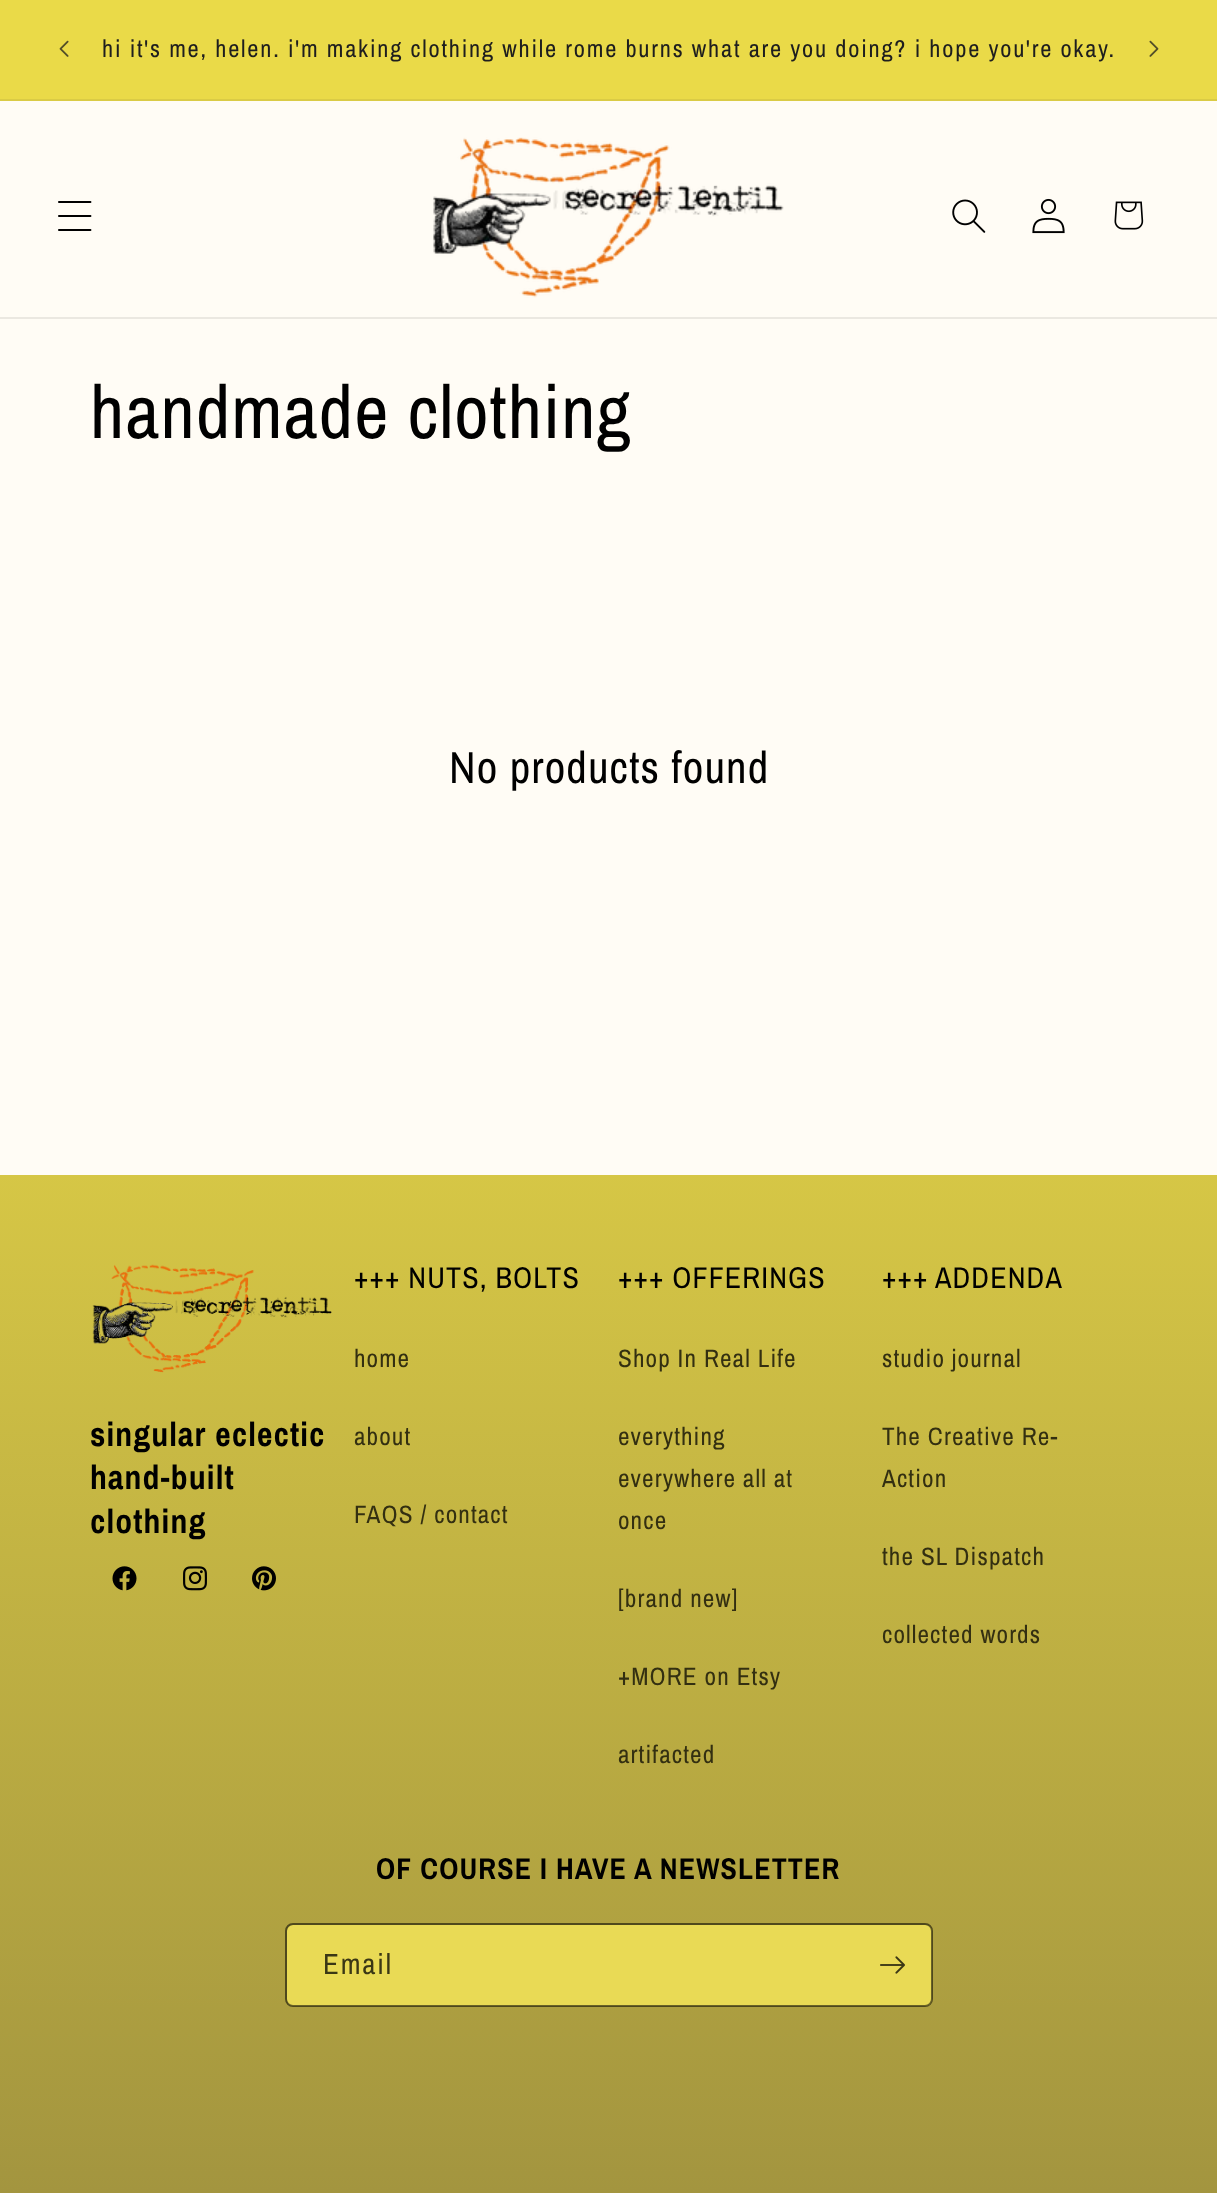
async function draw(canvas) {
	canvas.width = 1217;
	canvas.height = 2193;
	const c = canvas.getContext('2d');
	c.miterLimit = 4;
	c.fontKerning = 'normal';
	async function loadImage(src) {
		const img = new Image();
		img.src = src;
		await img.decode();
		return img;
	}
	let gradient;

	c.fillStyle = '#fffcf5';
	c.fillRect(0, 0, 1217, 2193);
	c.fillStyle = '#eada48';
	c.fillRect(0, 0, 1217, 99);
	c.fillStyle = '#dacb45';
	c.fillRect(0, 99, 1217, 2);
	c.drawImage(await loadImage('img1.png'), 59, 40, 10, 17);
	c.letterSpacing = '1.8px';
	c.font = '24.4px Archivo Narrow';
	c.fillStyle = '#1e1e1e';
	c.fillText('hi it\'s me, helen. i\'m making clothing while rome burns what are you doing? i hope you\'re okay.', 102, 57);
	c.drawImage(await loadImage('img2.png'), 1149, 40, 10, 17);
	c.fillStyle = '#ebe8e1';
	c.fillRect(0, 317, 1217, 2);
	c.drawImage(await loadImage('img3.png'), 58, 201, 34, 30);
	c.drawImage(await loadImage('img4.png'), 433, 137, 351, 161);
	c.drawImage(await loadImage('img5.png'), 952, 199, 34, 34);
	c.drawImage(await loadImage('img6.png'), 1032, 198, 33, 36);
	c.drawImage(await loadImage('img7.png'), 1114, 201, 30, 29);
	c.letterSpacing = '1.1px';
	c.font = '75px Archivo Narrow';
	c.fillStyle = '#000';
	c.fillText('handmade clothing', 90, 438);
	c.font = '45px Archivo Narrow';
	c.fillText('No products found', 449, 783);
	gradient = c.createLinearGradient(609, 2193, 609, 0);
	gradient.addColorStop(0, '#a3953f');
	gradient.addColorStop(0.65, '#eada48');
	gradient.addColorStop(0.99, '#e0ea50');
	c.fillStyle = gradient;
	c.fillRect(0, 1175, 1217, 1018);
	c.drawImage(await loadImage('img8.png'), 92, 1264, 240, 109);
	c.font = 'bold 33.75px Archivo Narrow';
	c.fillStyle = '#000';
	for (const [text, x, y] of [
		['singular eclectic', 90, 1446],
		['hand-built', 90, 1489],
		['clothing', 90, 1533],
	]) {
		c.fillText(text, x, y);
	}
	c.drawImage(await loadImage('img9.png'), 112, 1566, 25, 25);
	c.drawImage(await loadImage('img10.png'), 183, 1566, 24, 25);
	c.drawImage(await loadImage('img11.png'), 252, 1566, 24, 25);
	c.font = '30px Archivo Narrow';
	c.fillText('+++ NUTS, BOLTS', 354, 1288);
	c.font = '25.25px Archivo Narrow';
	c.fillStyle = '#332f11';
	for (const [text, x, y] of [
		['home', 354, 1367],
		['about', 354, 1445],
		['FAQS / contact', 354, 1523],
	]) {
		c.fillText(text, x, y);
	}
	c.font = '30px Archivo Narrow';
	c.fillStyle = '#000';
	c.fillText('+++ OFFERINGS', 618, 1288);
	c.font = '25.25px Archivo Narrow';
	c.fillStyle = '#332f11';
	for (const [text, x, y] of [
		['Shop In Real Life', 618, 1367],
		['everything', 618, 1445],
		['everywhere all at', 618, 1487],
		['once', 618, 1529],
		['[brand new]', 618, 1607],
		['+MORE on Etsy', 618, 1685],
		['artifacted', 618, 1763],
	]) {
		c.fillText(text, x, y);
	}
	c.font = '30px Archivo Narrow';
	c.fillStyle = '#000';
	c.fillText('+++ ADDENDA', 882, 1288);
	c.font = '25.25px Archivo Narrow';
	c.fillStyle = '#332f11';
	for (const [text, x, y] of [
		['studio journal', 882, 1367],
		['The Creative Re-', 882, 1445],
		['Action', 882, 1487],
		['the SL Dispatch', 882, 1565],
		['collected words', 882, 1643],
	]) {
		c.fillText(text, x, y);
	}
	c.font = 'bold 30px Archivo Narrow';
	c.fillStyle = '#000';
	c.fillText('OF COURSE I HAVE A NEWSLETTER', 376, 1879);
	c.fillStyle = '#e9da55';
	c.beginPath();
	c.roundRect(287, 1925, 645, 81, 6);
	c.fill();
	c.beginPath();
	c.roundRect(286, 1924, 646, 82, 7);
	c.strokeStyle = '#0000008c';
	c.lineWidth = 2;
	c.stroke();
	c.letterSpacing = '1.8px';
	c.font = '29px Archivo Narrow';
	c.fillStyle = '#3a3715';
	c.fillText('Email', 323, 1974);
	c.drawImage(await loadImage('img12.png'), 880, 1956, 25, 18);
}

draw(document.querySelector('canvas'));
